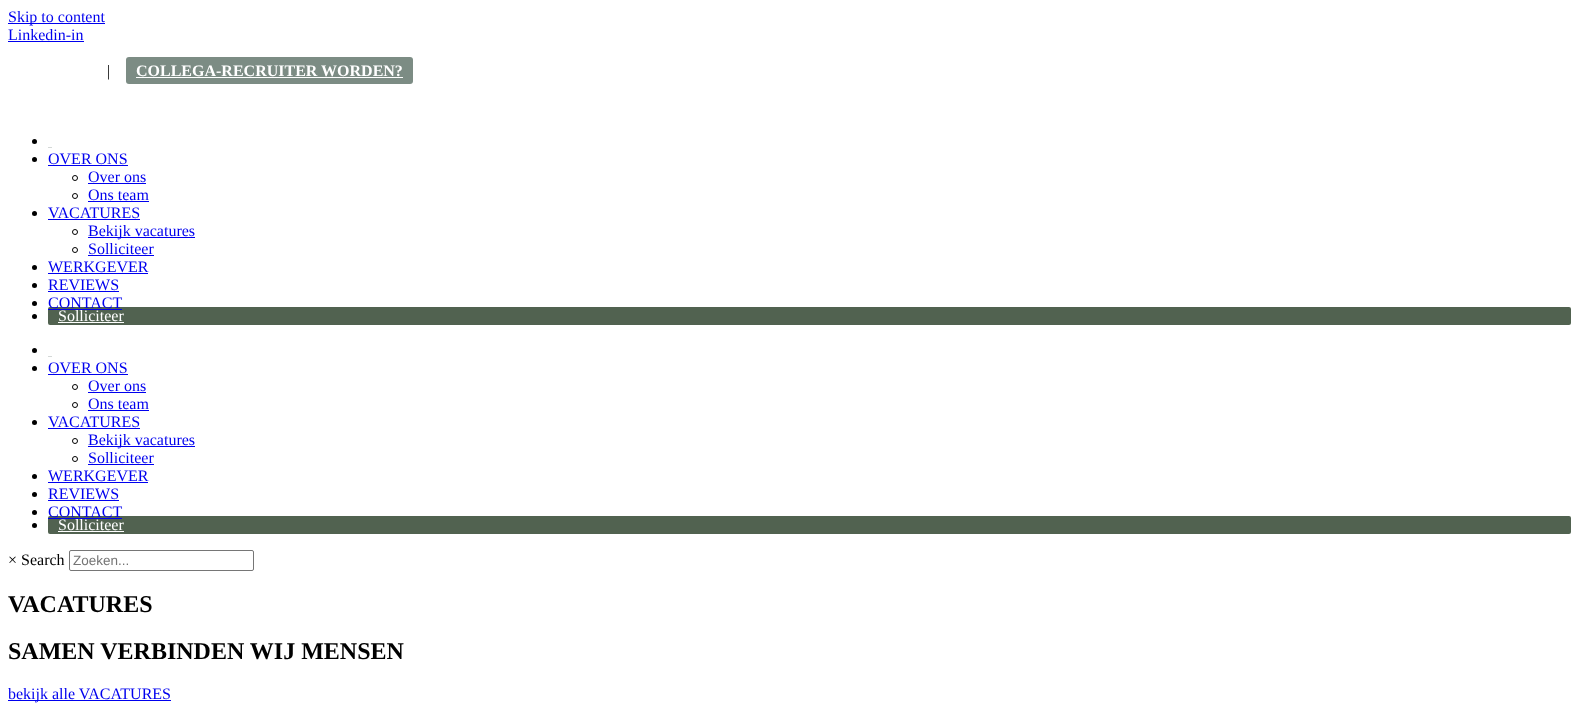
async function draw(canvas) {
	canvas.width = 1579;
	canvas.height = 707;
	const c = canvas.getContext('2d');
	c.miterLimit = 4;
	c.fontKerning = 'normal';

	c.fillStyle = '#fff';
	c.fillRect(0, 0, 1579, 707);
	c.fillStyle = '#00e';
	c.fillRect(8, 23, 97, 1);
	c.font = '16px Liberation Serif';
	c.fillText('Skip to content', 8, 22);
	c.fillText('Linkedin-in', 8, 40);
	c.fillRect(8, 41, 76, 1);
	c.fillStyle = '#000';
	c.fillText('|', 107, 76);
	c.fillStyle = '#7c8c84';
	c.beginPath();
	c.roundRect(126, 57, 287, 27, 3);
	c.fill();
	c.font = 'bold 16px Liberation Serif';
	c.fillStyle = '#fff';
	c.fillText('COLLEGA-RECRUITER WORDEN?', 136, 76);
	c.fillRect(136, 77, 267, 1);
	c.fillStyle = '#000';
	c.beginPath();
	c.arc(34.5, 141.5, 2.5, 0, 2 * Math.PI);
	c.fill();
	c.fillStyle = '#d4d8d7';
	c.fillRect(48, 147, 4, 1);
	c.fillStyle = '#000';
	c.beginPath();
	c.arc(34.5, 159.5, 2.5, 0, 2 * Math.PI);
	c.fill();
	c.font = '16px Liberation Serif';
	c.fillStyle = '#00e';
	c.fillText('OVER ONS', 48, 164);
	c.fillRect(48, 165, 80, 1);
	c.beginPath();
	c.arc(75, 178, 2.5, 0, 2 * Math.PI);
	c.strokeStyle = '#000';
	c.stroke();
	c.fillText('Over ons', 88, 182);
	c.fillRect(88, 183, 58, 1);
	c.beginPath();
	c.arc(75, 196, 2.5, 0, 2 * Math.PI);
	c.stroke();
	c.fillText('Ons team', 88, 200);
	c.fillRect(88, 201, 61, 1);
	c.fillStyle = '#000';
	c.beginPath();
	c.arc(34.5, 213.5, 2.5, 0, 2 * Math.PI);
	c.fill();
	c.fillStyle = '#00e';
	c.fillText('VACATURES', 48, 218);
	c.fillRect(48, 219, 92, 1);
	c.beginPath();
	c.arc(75, 232, 2.5, 0, 2 * Math.PI);
	c.stroke();
	c.fillRect(88, 237, 107, 1);
	c.fillText('Bekijk vacatures', 88, 236);
	c.beginPath();
	c.arc(75, 250, 2.5, 0, 2 * Math.PI);
	c.stroke();
	c.fillText('Solliciteer', 88, 254);
	c.fillRect(88, 255, 66, 1);
	c.fillStyle = '#000';
	c.beginPath();
	c.arc(34.5, 267.5, 2.5, 0, 2 * Math.PI);
	c.fill();
	c.fillStyle = '#00e';
	c.fillText('WERKGEVER', 48, 272);
	c.fillRect(48, 273, 100, 1);
	c.fillStyle = '#000';
	c.beginPath();
	c.arc(34.5, 285.5, 2.5, 0, 2 * Math.PI);
	c.fill();
	c.fillStyle = '#00e';
	c.fillText('REVIEWS', 48, 290);
	c.fillRect(48, 291, 71, 1);
	c.fillStyle = '#000';
	c.beginPath();
	c.arc(34.5, 303.5, 2.5, 0, 2 * Math.PI);
	c.fill();
	c.fillStyle = '#516250';
	c.beginPath();
	c.roundRect(48, 307, 1523, 18, 2);
	c.fill();
	c.fillStyle = '#00e';
	c.fillText('CONTACT', 48, 308);
	c.fillRect(48, 309, 74, 1);
	c.fillStyle = '#000';
	c.beginPath();
	c.arc(34.5, 316.5, 2.5, 0, 2 * Math.PI);
	c.fill();
	c.fillStyle = '#fff';
	c.fillText('Solliciteer', 58, 321);
	c.fillRect(58, 322, 66, 1);
	c.fillStyle = '#000';
	c.beginPath();
	c.arc(34.5, 350.5, 2.5, 0, 2 * Math.PI);
	c.fill();
	c.fillStyle = '#d4d8d7';
	c.fillRect(48, 356, 4, 1);
	c.fillStyle = '#000';
	c.beginPath();
	c.arc(34.5, 368.5, 2.5, 0, 2 * Math.PI);
	c.fill();
	c.fillStyle = '#00e';
	c.fillText('OVER ONS', 48, 373);
	c.fillRect(48, 374, 80, 1);
	c.beginPath();
	c.arc(75, 387, 2.5, 0, 2 * Math.PI);
	c.stroke();
	c.fillText('Over ons', 88, 391);
	c.fillRect(88, 392, 58, 1);
	c.beginPath();
	c.arc(75, 405, 2.5, 0, 2 * Math.PI);
	c.stroke();
	c.fillText('Ons team', 88, 409);
	c.fillRect(88, 410, 61, 1);
	c.fillStyle = '#000';
	c.beginPath();
	c.arc(34.5, 422.5, 2.5, 0, 2 * Math.PI);
	c.fill();
	c.fillStyle = '#00e';
	c.fillText('VACATURES', 48, 427);
	c.fillRect(48, 428, 92, 1);
	c.beginPath();
	c.arc(75, 441, 2.5, 0, 2 * Math.PI);
	c.stroke();
	c.fillRect(88, 446, 107, 1);
	c.fillText('Bekijk vacatures', 88, 445);
	c.beginPath();
	c.arc(75, 459, 2.5, 0, 2 * Math.PI);
	c.stroke();
	c.fillText('Solliciteer', 88, 463);
	c.fillRect(88, 464, 66, 1);
	c.fillStyle = '#000';
	c.beginPath();
	c.arc(34.5, 476.5, 2.5, 0, 2 * Math.PI);
	c.fill();
	c.fillStyle = '#00e';
	c.fillText('WERKGEVER', 48, 481);
	c.fillRect(48, 482, 100, 1);
	c.fillStyle = '#000';
	c.beginPath();
	c.arc(34.5, 494.5, 2.5, 0, 2 * Math.PI);
	c.fill();
	c.fillStyle = '#00e';
	c.fillText('REVIEWS', 48, 499);
	c.fillRect(48, 500, 71, 1);
	c.fillStyle = '#000';
	c.beginPath();
	c.arc(34.5, 512.5, 2.5, 0, 2 * Math.PI);
	c.fill();
	c.fillStyle = '#516250';
	c.beginPath();
	c.roundRect(48, 516, 1523, 18, 2);
	c.fill();
	c.fillStyle = '#00e';
	c.fillText('CONTACT', 48, 517);
	c.fillRect(48, 518, 74, 1);
	c.fillStyle = '#000';
	c.beginPath();
	c.arc(34.5, 525.5, 2.5, 0, 2 * Math.PI);
	c.fill();
	c.fillStyle = '#fff';
	c.fillText('Solliciteer', 58, 530);
	c.fillRect(58, 531, 66, 1);
	c.fillStyle = '#000';
	c.fillText('× Search', 8, 565);
	c.beginPath();
	c.roundRect(69.5, 550.5, 184, 20, 1.5);
	c.strokeStyle = '#767676';
	c.stroke();
	c.font = '13.5px Liberation Sans';
	c.fillStyle = '#757575';
	c.fillText('Zoeken...', 73, 565);
	c.font = 'bold 24px Liberation Serif';
	c.fillStyle = '#000';
	c.fillText('VACATURES', 8, 612);
	c.fillText('SAMEN VERBINDEN WIJ MENSEN', 8, 659);
	c.fillStyle = '#00e';
	c.fillRect(8, 700, 163, 1);
	c.font = '16px Liberation Serif';
	c.fillText('bekijk alle VACATURES', 8, 699);
}

draw(document.querySelector('canvas'));
